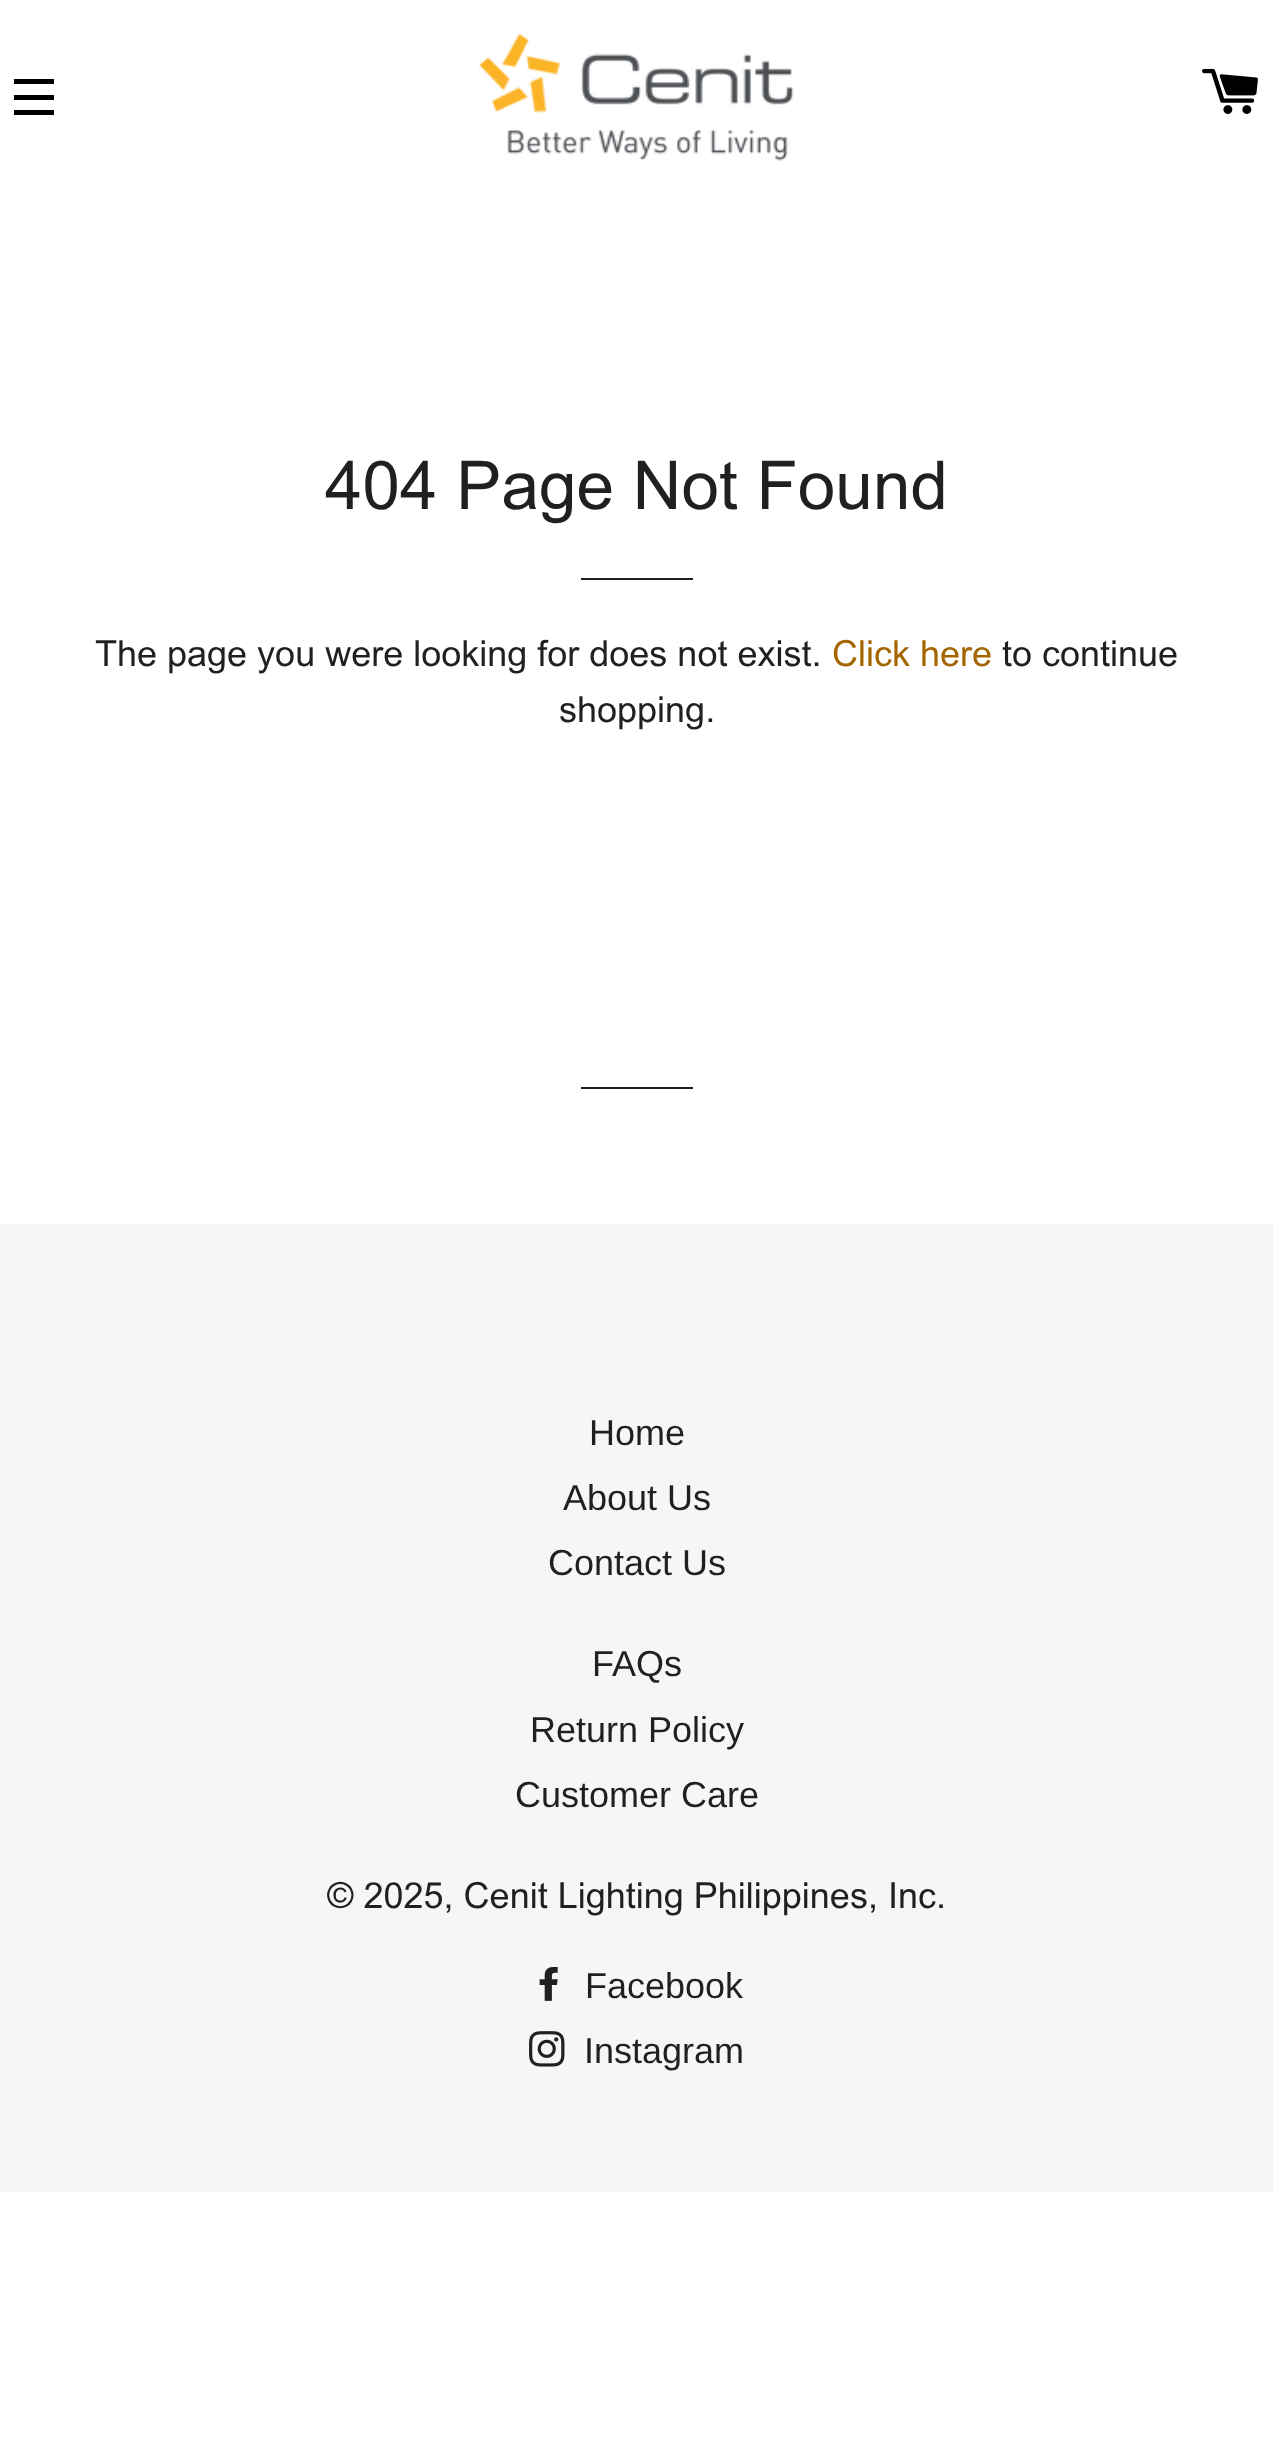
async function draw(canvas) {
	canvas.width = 1273;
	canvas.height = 2439;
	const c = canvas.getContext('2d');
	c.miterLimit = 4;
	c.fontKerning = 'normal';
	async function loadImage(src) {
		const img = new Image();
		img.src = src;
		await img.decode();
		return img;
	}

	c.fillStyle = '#fff';
	c.fillRect(0, 0, 1273, 2439);
	for (const [x, y, w, h, color] of [
		[14, 79, 40, 5, '#000'],
		[14, 95, 40, 5, '#000'],
		[14, 110, 40, 5, '#000'],
	]) {
		c.fillStyle = color;
		c.fillRect(x, y, w, h);
	}
	c.drawImage(await loadImage('img1.png'), 479, 33, 315, 128);
	c.drawImage(await loadImage('img2.png'), 1202, 68, 56, 46);
	c.font = '67.5px Arial';
	c.fillStyle = '#1f2021';
	c.fillText('404 Page Not Found', 325, 509);
	c.fillRect(581, 578, 112, 2);
	c.font = '36px Arial';
	c.fillText('The page you were looking for does not exist.', 95, 666);
	c.fillStyle = '#a56600';
	c.fillText('Click here', 832, 666);
	c.fillStyle = '#1f2021';
	c.fillText('to continue', 1002, 666);
	c.fillText('shopping.', 559, 722);
	c.fillRect(581, 1087, 112, 2);
	c.fillStyle = '#f6f6f6';
	c.fillRect(0, 1224, 1273, 968);
	c.font = '36px Liberation Sans';
	c.fillStyle = '#1f2021';
	for (const [text, x, y] of [
		['Home', 589, 1445],
		['About Us', 563, 1510],
		['Contact Us', 548, 1575],
		['FAQs', 592, 1676],
		['Return Policy', 530, 1742],
		['Customer Care', 515, 1807],
	]) {
		c.fillText(text, x, y);
	}
	c.font = '36px Arial';
	c.fillText('© 2025, Cenit Lighting Philippines, Inc.', 327, 1908);
	c.drawImage(await loadImage('img3.png'), 539, 1967, 19, 34);
	c.font = '36px Liberation Sans';
	c.fillText('Facebook', 585, 1998);
	c.drawImage(await loadImage('img4.png'), 529, 2031, 36, 36);
	c.fillText('Instagram', 584, 2063);
}

draw(document.querySelector('canvas'));
